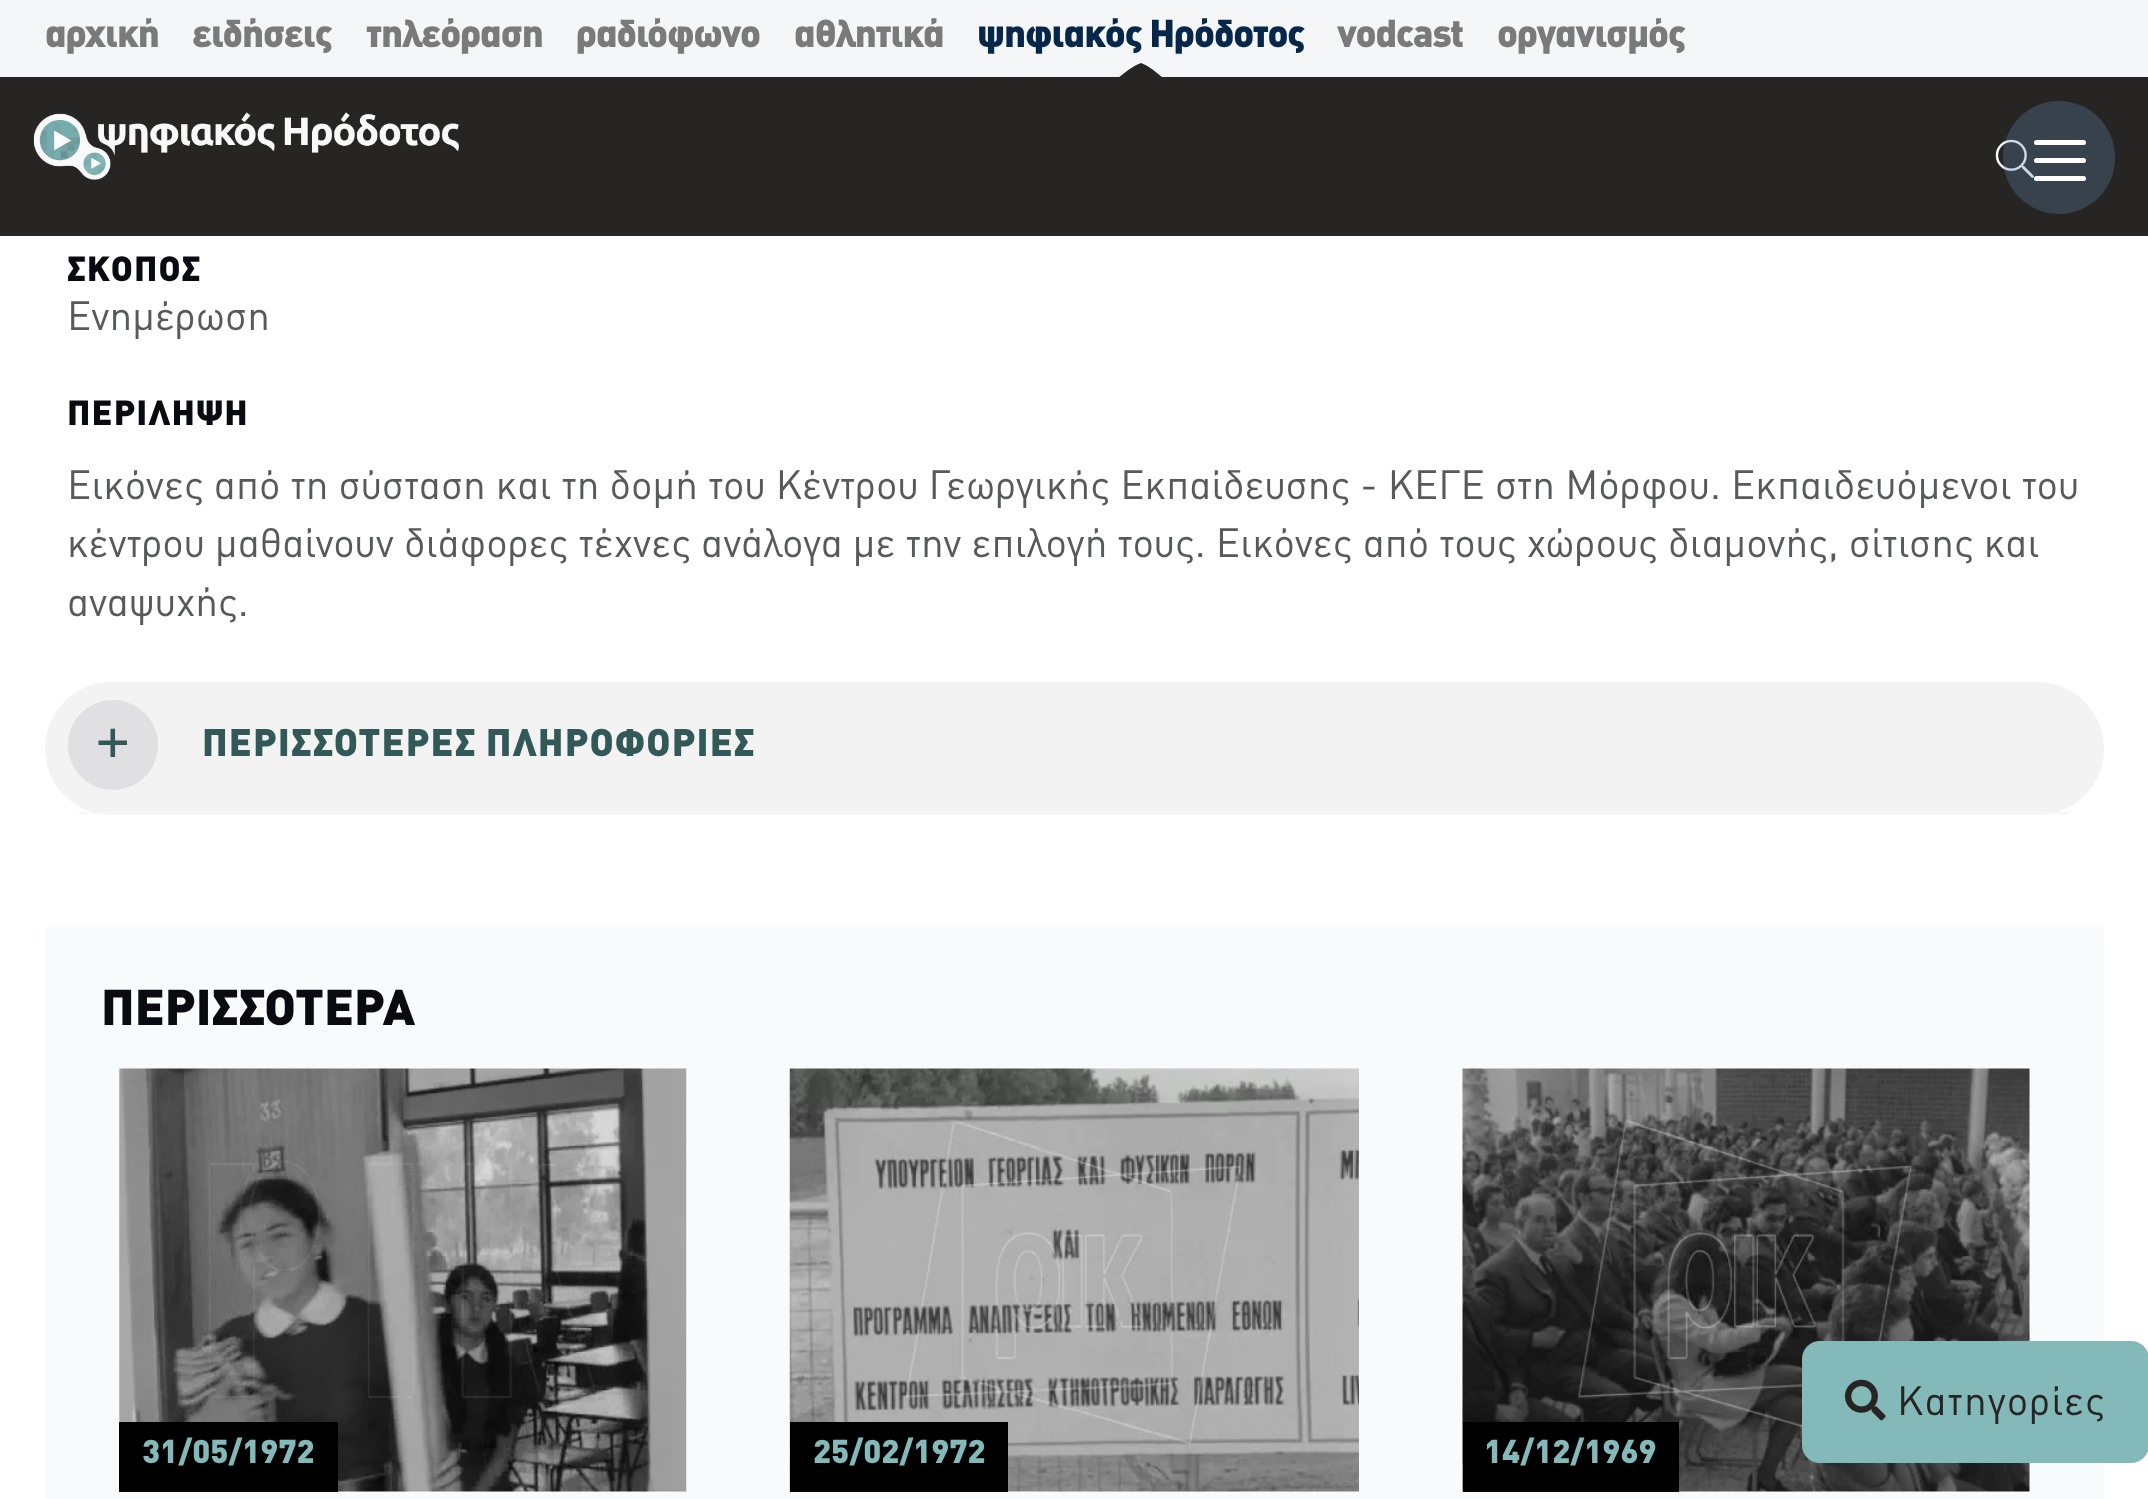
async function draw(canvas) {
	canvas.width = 2148;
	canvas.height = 1499;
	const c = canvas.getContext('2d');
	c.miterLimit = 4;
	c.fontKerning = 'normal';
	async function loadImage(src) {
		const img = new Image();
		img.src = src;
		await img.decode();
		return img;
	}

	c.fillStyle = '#fff';
	c.fillRect(0, 0, 2148, 1499);
	c.fillStyle = '#272524';
	c.fillRect(0, 77, 2148, 159);
	c.fillStyle = '#f4f6f8';
	c.fillRect(0, 0, 2148, 77);
	c.letterSpacing = '-1.1px';
	c.font = '900 38.25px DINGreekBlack';
	c.fillStyle = '#7a7a7a';
	for (const [text, x, y] of [
		['αρχική', 45, 47],
		['ειδήσεις', 192, 47],
		['τηλεόραση', 366, 47],
		['ραδιόφωνο', 576, 47],
		['αθλητικά', 794, 47],
	]) {
		c.fillText(text, x, y);
	}
	c.fillStyle = '#07274a';
	c.fillText('ψηφιακός Ηρόδοτος', 977, 47);
	c.save();
	c.beginPath();
	c.rect(1118, 63, 45, 14);
	c.clip();
	c.fillStyle = '#272524';
	c.beginPath();
	c.moveTo(1141, 63);
	c.bezierCurveTo(1132, 66, 1118, 78, 1118, 78);
	c.lineTo(1163, 78);
	c.bezierCurveTo(1163, 78, 1150, 66, 1141, 63);
	c.closePath();
	c.fill();
	c.restore();
	c.fillStyle = '#7a7a7a';
	c.fillText('vodcast', 1337, 47);
	c.fillText('οργανισμός', 1497, 47);
	c.drawImage(await loadImage('img1.png'), 33, 112, 426, 68);
	c.drawImage(await loadImage('img2.png'), 1995, 139, 39, 39);
	c.fillStyle = '#5e88ac4d';
	c.beginPath();
	c.roundRect(2003, 101, 112, 113, 56);
	c.fill();
	c.fillStyle = '#fff';
	c.beginPath();
	c.roundRect(2034, 140, 52, 5, 2.5);
	c.fill();
	c.beginPath();
	c.roundRect(2034, 158, 52, 5, 2.5);
	c.fill();
	c.beginPath();
	c.roundRect(2034, 176, 52, 5, 2.5);
	c.fill();
	c.letterSpacing = '1.1px';
	c.font = '900 34.5px DINGreekBlack';
	c.fillStyle = '#0a0a11';
	c.fillText('ΣΚΟΠΟΣ', 67, 281);
	c.letterSpacing = '0px';
	c.font = '40.5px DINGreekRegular';
	c.fillStyle = '#58595b';
	c.fillText('Ενημέρωση', 67, 330);
	c.letterSpacing = '1.1px';
	c.font = '900 34.5px DINGreekBlack';
	c.fillStyle = '#0a0a11';
	c.fillText('ΠΕΡΙΛΗΨΗ', 67, 425);
	c.letterSpacing = '0px';
	c.font = '40.5px DINGreekRegular';
	c.fillStyle = '#58595b';
	for (const [text, x, y] of [
		['Εικόνες από τη σύσταση και τη δομή του Κέντρου Γεωργικής Εκπαίδευσης - ΚΕΓΕ στη Μόρφου. Εκπαιδευόμενοι του', 67, 499],
		['κέντρου μαθαίνουν διάφορες τέχνες ανάλογα με την επιλογή τους. Εικόνες από τους χώρους διαμονής, σίτισης και', 67, 557],
		['αναψυχής.', 67, 616],
	]) {
		c.fillText(text, x, y);
	}
	c.fillStyle = '#f3f3f4';
	c.beginPath();
	c.roundRect(45, 682, 2059, 133, 66.5);
	c.fill();
	c.fillStyle = '#f4f6f8';
	c.fillRect(79, 812, 1991, 2);
	c.fillStyle = '#e0e0e2';
	c.beginPath();
	c.arc(113, 745, 45, 0, 2 * Math.PI);
	c.fill();
	c.font = '68px DINGreekRegular';
	c.fillStyle = '#325858';
	c.fillText('+', 95, 761);
	c.letterSpacing = '1.1px';
	c.font = '900 37.9px DINGreekBlack';
	c.fillText('ΠΕΡΙΣΣΟΤΕΡΕΣ ΠΛΗΡΟΦΟΡΙΕΣ', 202, 756);
	c.fillStyle = '#f7fbfb';
	c.fillRect(45, 927, 2059, 572);
	c.letterSpacing = '0px';
	c.font = '900 49.5px DINGreekBlack';
	c.fillStyle = '#0a0a11';
	c.fillText('ΠΕΡΙΣΣΟΤΕΡΑ', 101, 1025);
	c.drawImage(await loadImage('img3.png'), 119, 1068, 568, 424);
	c.fillStyle = '#000';
	c.fillRect(119, 1422, 219, 70);
	c.font = '900 32.5px DINGreekBlack';
	c.fillStyle = '#84b9b9';
	c.fillText('31/05/1972', 142, 1463);
	c.drawImage(await loadImage('img4.png'), 789, 1068, 570, 424);
	c.fillStyle = '#000';
	c.fillRect(790, 1422, 218, 70);
	c.fillStyle = '#84b9b9';
	c.fillText('25/02/1972', 813, 1463);
	c.drawImage(await loadImage('img5.png'), 1462, 1068, 568, 424);
	c.fillStyle = '#000';
	c.fillRect(1463, 1422, 216, 70);
	c.fillStyle = '#84b9b9';
	c.fillText('14/12/1969', 1484, 1463);
	c.beginPath();
	c.roundRect(1802, 1341, 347, 122, 18);
	c.fill();
	c.drawImage(await loadImage('img6.png'), 1845, 1379, 41, 42);
	c.letterSpacing = '1.1px';
	c.font = '40.5px DINGreekRegular';
	c.fillStyle = '#272524';
	c.fillText('Κατηγορίες', 1897, 1415);
}

draw(document.querySelector('canvas'));
